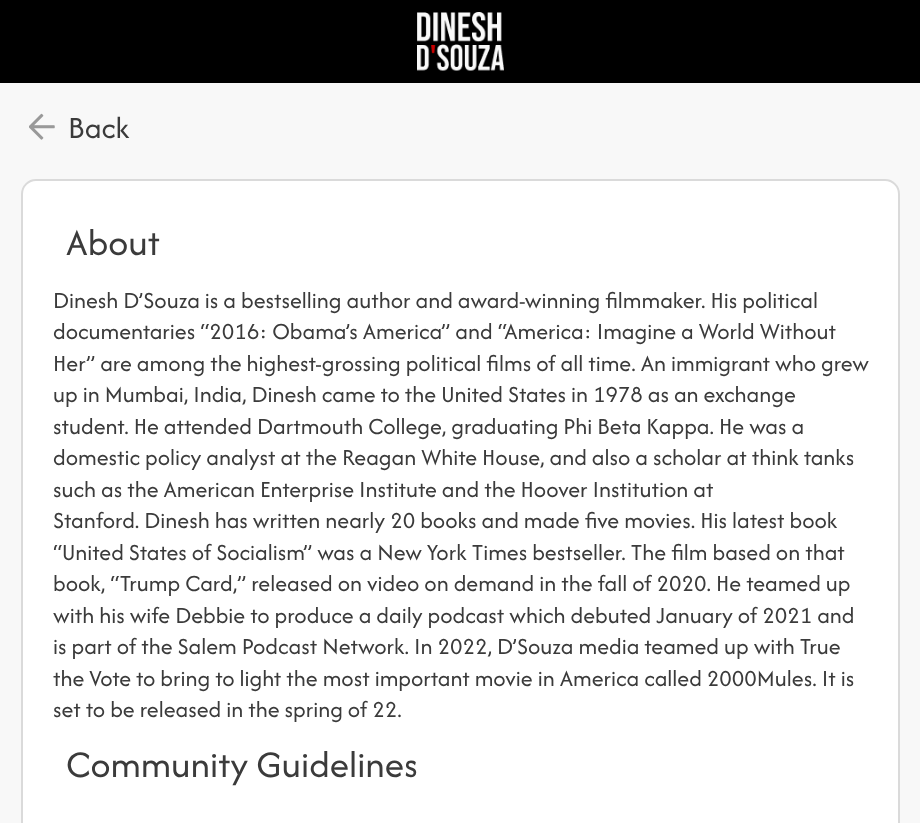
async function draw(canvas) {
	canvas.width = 920;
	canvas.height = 823;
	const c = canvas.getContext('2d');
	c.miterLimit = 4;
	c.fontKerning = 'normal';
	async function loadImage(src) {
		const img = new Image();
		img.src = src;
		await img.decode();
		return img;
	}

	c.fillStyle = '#f8f8f8';
	c.fillRect(0, 0, 920, 823);
	c.fillStyle = '#000';
	c.fillRect(0, 0, 920, 83);
	c.drawImage(await loadImage('img1.png'), 417, 12, 87, 59);
	c.drawImage(await loadImage('img2.png'), 29, 113, 26, 27);
	c.font = '32px Afacad';
	c.fillStyle = '#3b3b3b';
	c.fillText('Back', 68, 138);
	c.fillStyle = '#fff';
	c.beginPath();
	c.roundRect(22, 180, 877, 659, 14);
	c.fill();
	c.strokeStyle = '#dadada';
	c.lineWidth = 2;
	c.stroke();
	c.font = '39px Afacad';
	c.fillStyle = '#3b3b3b';
	c.fillText('About', 66, 255);
	c.font = '24px Afacad';
	for (const [text, x, y] of [
		['Dinesh D’Souza is a bestselling author and award-winning filmmaker. His political', 53, 308],
		['documentaries “2016: Obama’s America” and “America: Imagine a World Without', 53, 339],
		['Her” are among the highest-grossing political films of all time. An immigrant who grew', 53, 371],
		['up in Mumbai, India, Dinesh came to the United States in 1978 as an exchange', 53, 402],
		['student. He attended Dartmouth College, graduating Phi Beta Kappa. He was a', 53, 434],
		['domestic policy analyst at the Reagan White House, and also a scholar at think tanks', 53, 465],
		['such as the American Enterprise Institute and the Hoover Institution at', 53, 497],
		['Stanford. Dinesh has written nearly 20 books and made five movies. His latest book', 53, 528],
		['“United States of Socialism” was a New York Times bestseller. The film based on that', 53, 560],
		['book, “Trump Card,” released on video on demand in the fall of 2020. He teamed up', 53, 591],
		['with his wife Debbie to produce a daily podcast which debuted January of 2021 and', 53, 623],
		['is part of the Salem Podcast Network. In 2022, D’Souza media teamed up with True', 53, 654],
		['the Vote to bring to light the most important movie in America called 2000Mules. It is', 53, 686],
		['set to be released in the spring of 22.', 53, 717],
	]) {
		c.fillText(text, x, y);
	}
	c.font = '39px Afacad';
	c.fillText('Community Guidelines', 66, 777);
}

draw(document.querySelector('canvas'));
